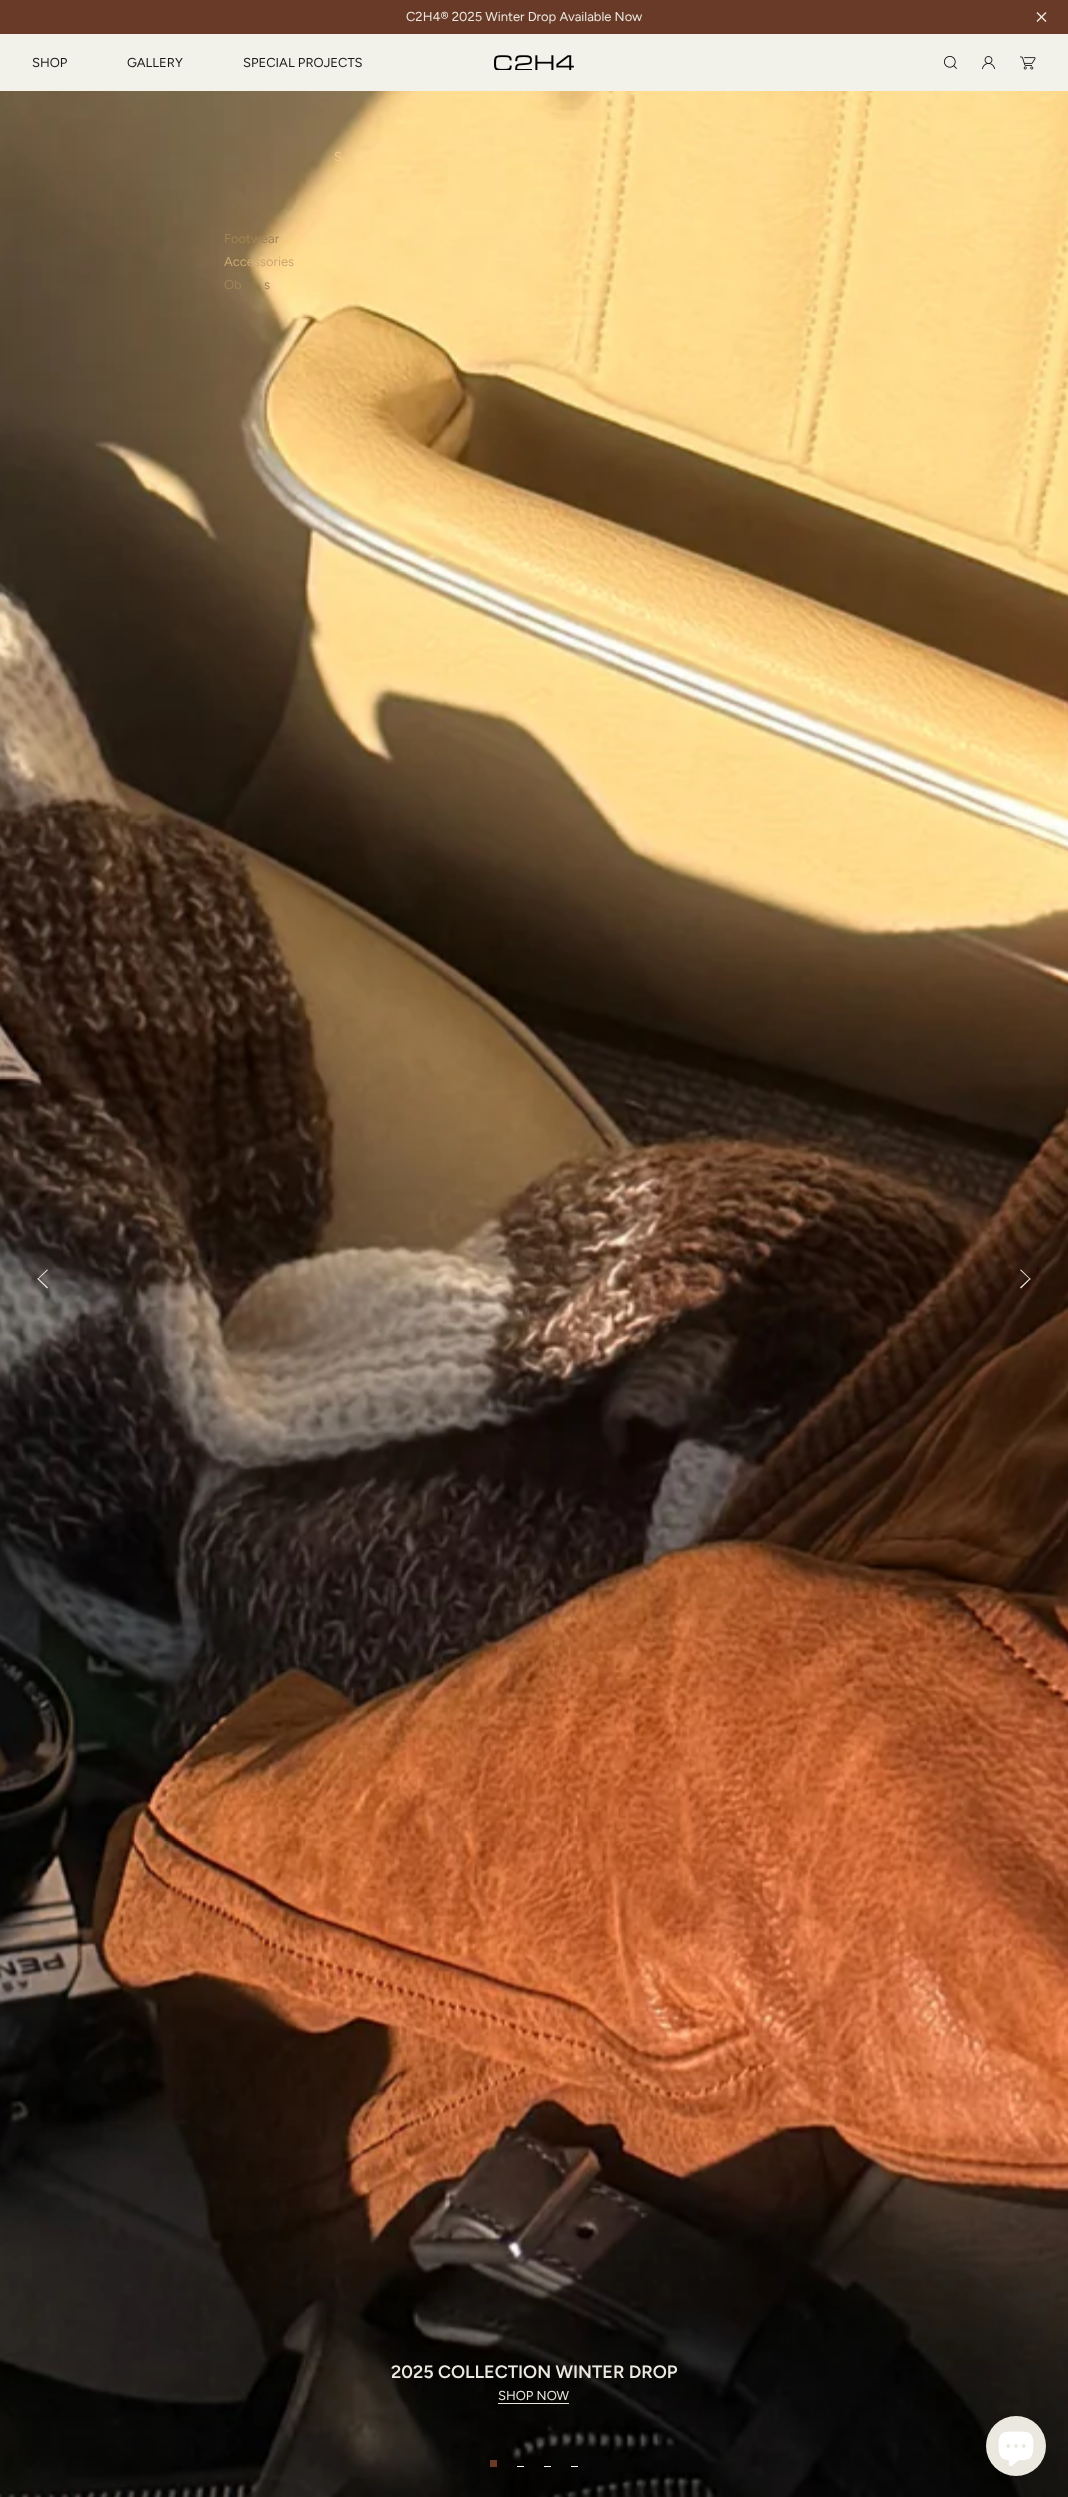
async function draw(canvas) {
	canvas.width = 1068;
	canvas.height = 2497;
	const c = canvas.getContext('2d');
	c.miterLimit = 4;
	c.fontKerning = 'normal';
	async function loadImage(src) {
		const img = new Image();
		img.src = src;
		await img.decode();
		return img;
	}

	c.fillStyle = '#fff';
	c.fillRect(0, 0, 1068, 2497);
	c.fillStyle = '#693a28';
	c.fillRect(0, 0, 1068, 34);
	c.font = '13px Figtree';
	c.fillStyle = '#eae8df';
	c.fillText('C2H4® 2025 Winter Drop Available Now', 406, 21);
	c.beginPath();
	c.moveTo(1037.5, 12);
	c.lineTo(1046.5, 21);
	c.lineTo(1045.5, 22);
	c.lineTo(1036.5, 13);
	c.closePath();
	c.fill();
	c.beginPath();
	c.moveTo(1036.5, 21);
	c.lineTo(1045.5, 12);
	c.lineTo(1046.5, 13);
	c.lineTo(1037.5, 22);
	c.closePath();
	c.fill();
	c.fillStyle = '#f3f2ea';
	c.fillRect(0, 34, 1068, 57);
	c.fillStyle = '#1a1a1a';
	for (const [text, x, y] of [
		['SHOP', 32, 67],
		['GALLERY', 127, 67],
		['SPECIAL PROJECTS', 243, 67],
	]) {
		c.fillText(text, x, y);
	}
	c.drawImage(await loadImage('img1.png'), 494, 55, 80, 15);
	c.drawImage(await loadImage('img2.png'), 944, 56, 13, 13);
	c.drawImage(await loadImage('img3.png'), 982, 56, 13, 13);
	c.drawImage(await loadImage('img4.png'), 1020, 56, 16, 14);
	c.drawImage(await loadImage('img5.png'), 0, 91, 1068, 2406);
	c.fillStyle = '#a18456';
	c.fillText('Footwear', 224, 243);
	c.fillStyle = '#cba971';
	c.fillText('Accessories', 224, 266);
	c.fillStyle = '#a18456';
	c.fillText('Ob', 224, 289);
	c.fillText('s', 264, 289);
	c.fillStyle = '#f4cc87';
	c.fillText('S', 334, 161);
	c.fillStyle = '#eae8df';
	c.beginPath();
	c.moveTo(37.5, 1279);
	c.lineTo(47, 1269.5);
	c.lineTo(48, 1270);
	c.lineTo(38, 1279.5);
	c.closePath();
	c.fill();
	c.beginPath();
	c.moveTo(37.5, 1279);
	c.lineTo(38, 1278);
	c.lineTo(48, 1287.5);
	c.lineTo(47, 1288.5);
	c.closePath();
	c.fill();
	c.beginPath();
	c.moveTo(1030.5, 1279);
	c.lineTo(1021, 1288.5);
	c.lineTo(1020, 1287.5);
	c.lineTo(1030, 1278);
	c.closePath();
	c.fill();
	c.beginPath();
	c.moveTo(1030.5, 1279);
	c.lineTo(1030, 1279.5);
	c.lineTo(1020, 1270);
	c.lineTo(1021, 1269.5);
	c.closePath();
	c.fill();
	c.font = '600 18px Figtree';
	c.fillText('2025 COLLECTION WINTER DROP', 391, 2378);
	c.font = '13px Figtree';
	c.fillText('SHOP NOW', 498, 2400);
	for (const [x, y, w, h, color] of [
		[498, 2403, 71, 1, '#eae8df'],
		[490, 2460, 7, 7, '#693a28'],
		[517, 2466, 7, 1, '#fff'],
		[544, 2466, 7, 1, '#fff'],
		[571, 2466, 7, 1, '#fff'],
	]) {
		c.fillStyle = color;
		c.fillRect(x, y, w, h);
	}
	c.fillStyle = '#eae8df';
	c.beginPath();
	c.arc(1016, 2446, 30, 0, 2 * Math.PI);
	c.fill();
	c.drawImage(await loadImage('img6.png'), 998, 2431, 36, 36);
}

draw(document.querySelector('canvas'));
